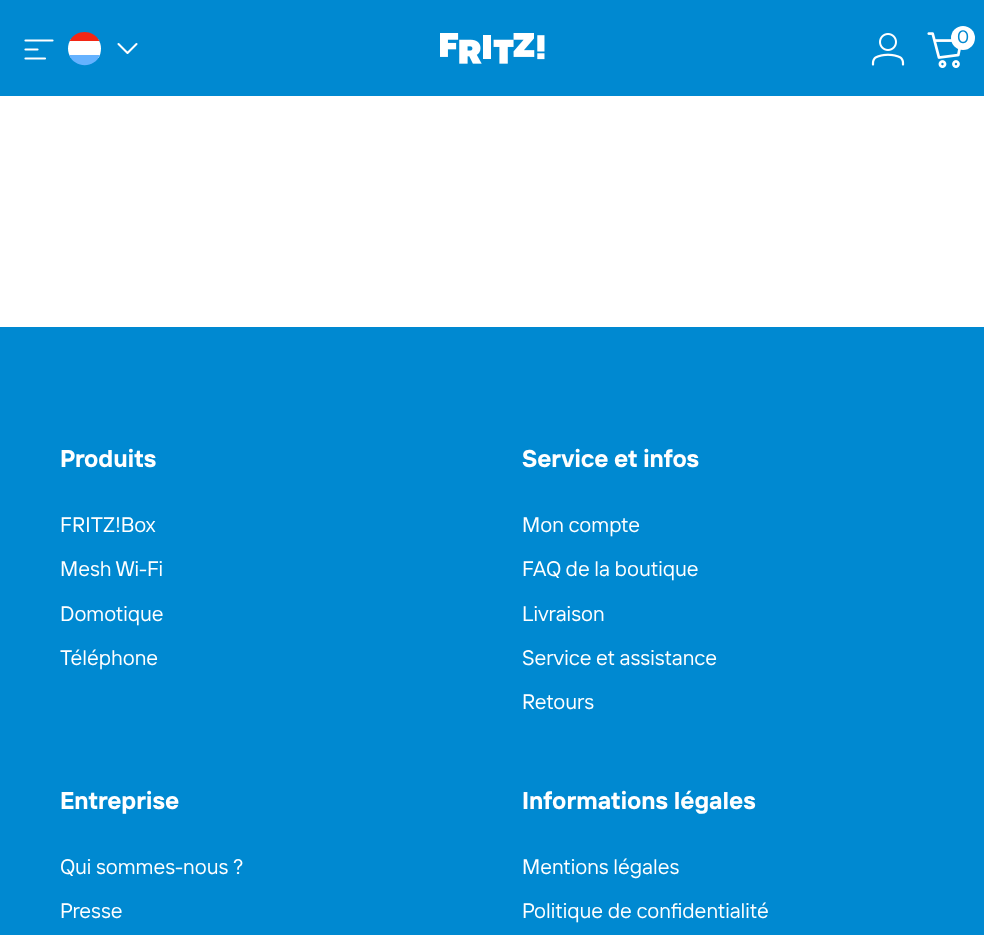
async function draw(canvas) {
	canvas.width = 984;
	canvas.height = 935;
	const c = canvas.getContext('2d');
	c.miterLimit = 4;
	c.fontKerning = 'normal';
	async function loadImage(src) {
		const img = new Image();
		img.src = src;
		await img.decode();
		return img;
	}

	c.fillStyle = '#fff';
	c.fillRect(0, 0, 984, 935);
	c.fillStyle = '#0089d1';
	c.fillRect(0, 0, 984, 96);
	c.beginPath();
	c.moveTo(25.5, 40.5);
	c.lineTo(52.5, 40.5);
	c.moveTo(25.5, 49.5);
	c.lineTo(37.5, 49.5);
	c.moveTo(25.5, 58.5);
	c.lineTo(45, 58.5);
	c.strokeStyle = '#fff';
	c.lineWidth = 2.2;
	c.lineCap = 'round';
	c.stroke();
	c.fillStyle = '#fff';
	c.beginPath();
	c.moveTo(101, 48.5);
	c.bezierCurveTo(101, 52, 100, 55.5, 98.5, 58);
	c.lineTo(71, 58);
	c.bezierCurveTo(67, 52.5, 67, 44.5, 71, 39);
	c.lineTo(98, 39);
	c.bezierCurveTo(100, 42, 101, 45, 101, 48.5);
	c.closePath();
	c.fill();
	c.fillStyle = '#65b2ff';
	c.beginPath();
	c.moveTo(100, 55);
	c.lineTo(69, 55);
	c.bezierCurveTo(75, 68.5, 94.5, 68.5, 100, 55);
	c.closePath();
	c.fill();
	c.fillStyle = '#f32614';
	c.beginPath();
	c.moveTo(99.5, 41);
	c.lineTo(69.5, 41);
	c.bezierCurveTo(76, 29, 93, 29, 99.5, 41);
	c.closePath();
	c.fill();
	c.beginPath();
	c.moveTo(118.5, 44);
	c.lineTo(127.5, 53);
	c.lineTo(136.5, 44);
	c.lineWidth = 2.1;
	c.lineJoin = 'round';
	c.stroke();
	c.drawImage(await loadImage('img1.png'), 440, 33, 105, 31);
	c.drawImage(await loadImage('img2.png'), 871, 33, 34, 33);
	c.drawImage(await loadImage('img3.png'), 927, 32, 34, 36);
	c.fillStyle = '#fff';
	c.beginPath();
	c.arc(963, 38, 12, 0, 2 * Math.PI);
	c.fill();
	c.font = '18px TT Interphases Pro';
	c.fillStyle = '#0089d1';
	c.fillText('0', 957, 43);
	c.fillRect(0, 327, 984, 608);
	c.font = 'bold 24.25px TT Interphases Pro';
	c.fillStyle = '#fff';
	c.fillText('Produits', 60, 467);
	c.font = '21px TT Interphases Pro';
	for (const [text, x, y] of [
		['FRITZ!Box', 60, 532],
		['Mesh Wi-Fi', 60, 576],
		['Domotique', 60, 621],
		['Téléphone', 60, 665],
	]) {
		c.fillText(text, x, y);
	}
	c.font = 'bold 24.25px TT Interphases Pro';
	c.fillText('Service et infos', 522, 467);
	c.font = '21px TT Interphases Pro';
	for (const [text, x, y] of [
		['Mon compte', 522, 532],
		['FAQ de la boutique', 522, 576],
		['Livraison', 522, 621],
		['Service et assistance', 522, 665],
		['Retours', 522, 709],
	]) {
		c.fillText(text, x, y);
	}
	c.font = 'bold 24.25px TT Interphases Pro';
	c.fillText('Entreprise', 60, 809);
	c.font = '21px TT Interphases Pro';
	c.fillText('Qui sommes-nous ?', 60, 874);
	c.fillText('Presse', 60, 918);
	c.font = 'bold 24.25px TT Interphases Pro';
	c.fillText('Informations légales', 522, 809);
	c.font = '21px TT Interphases Pro';
	c.fillText('Mentions légales', 522, 874);
	c.fillText('Politique de confidentialité', 522, 918);
}

draw(document.querySelector('canvas'));
